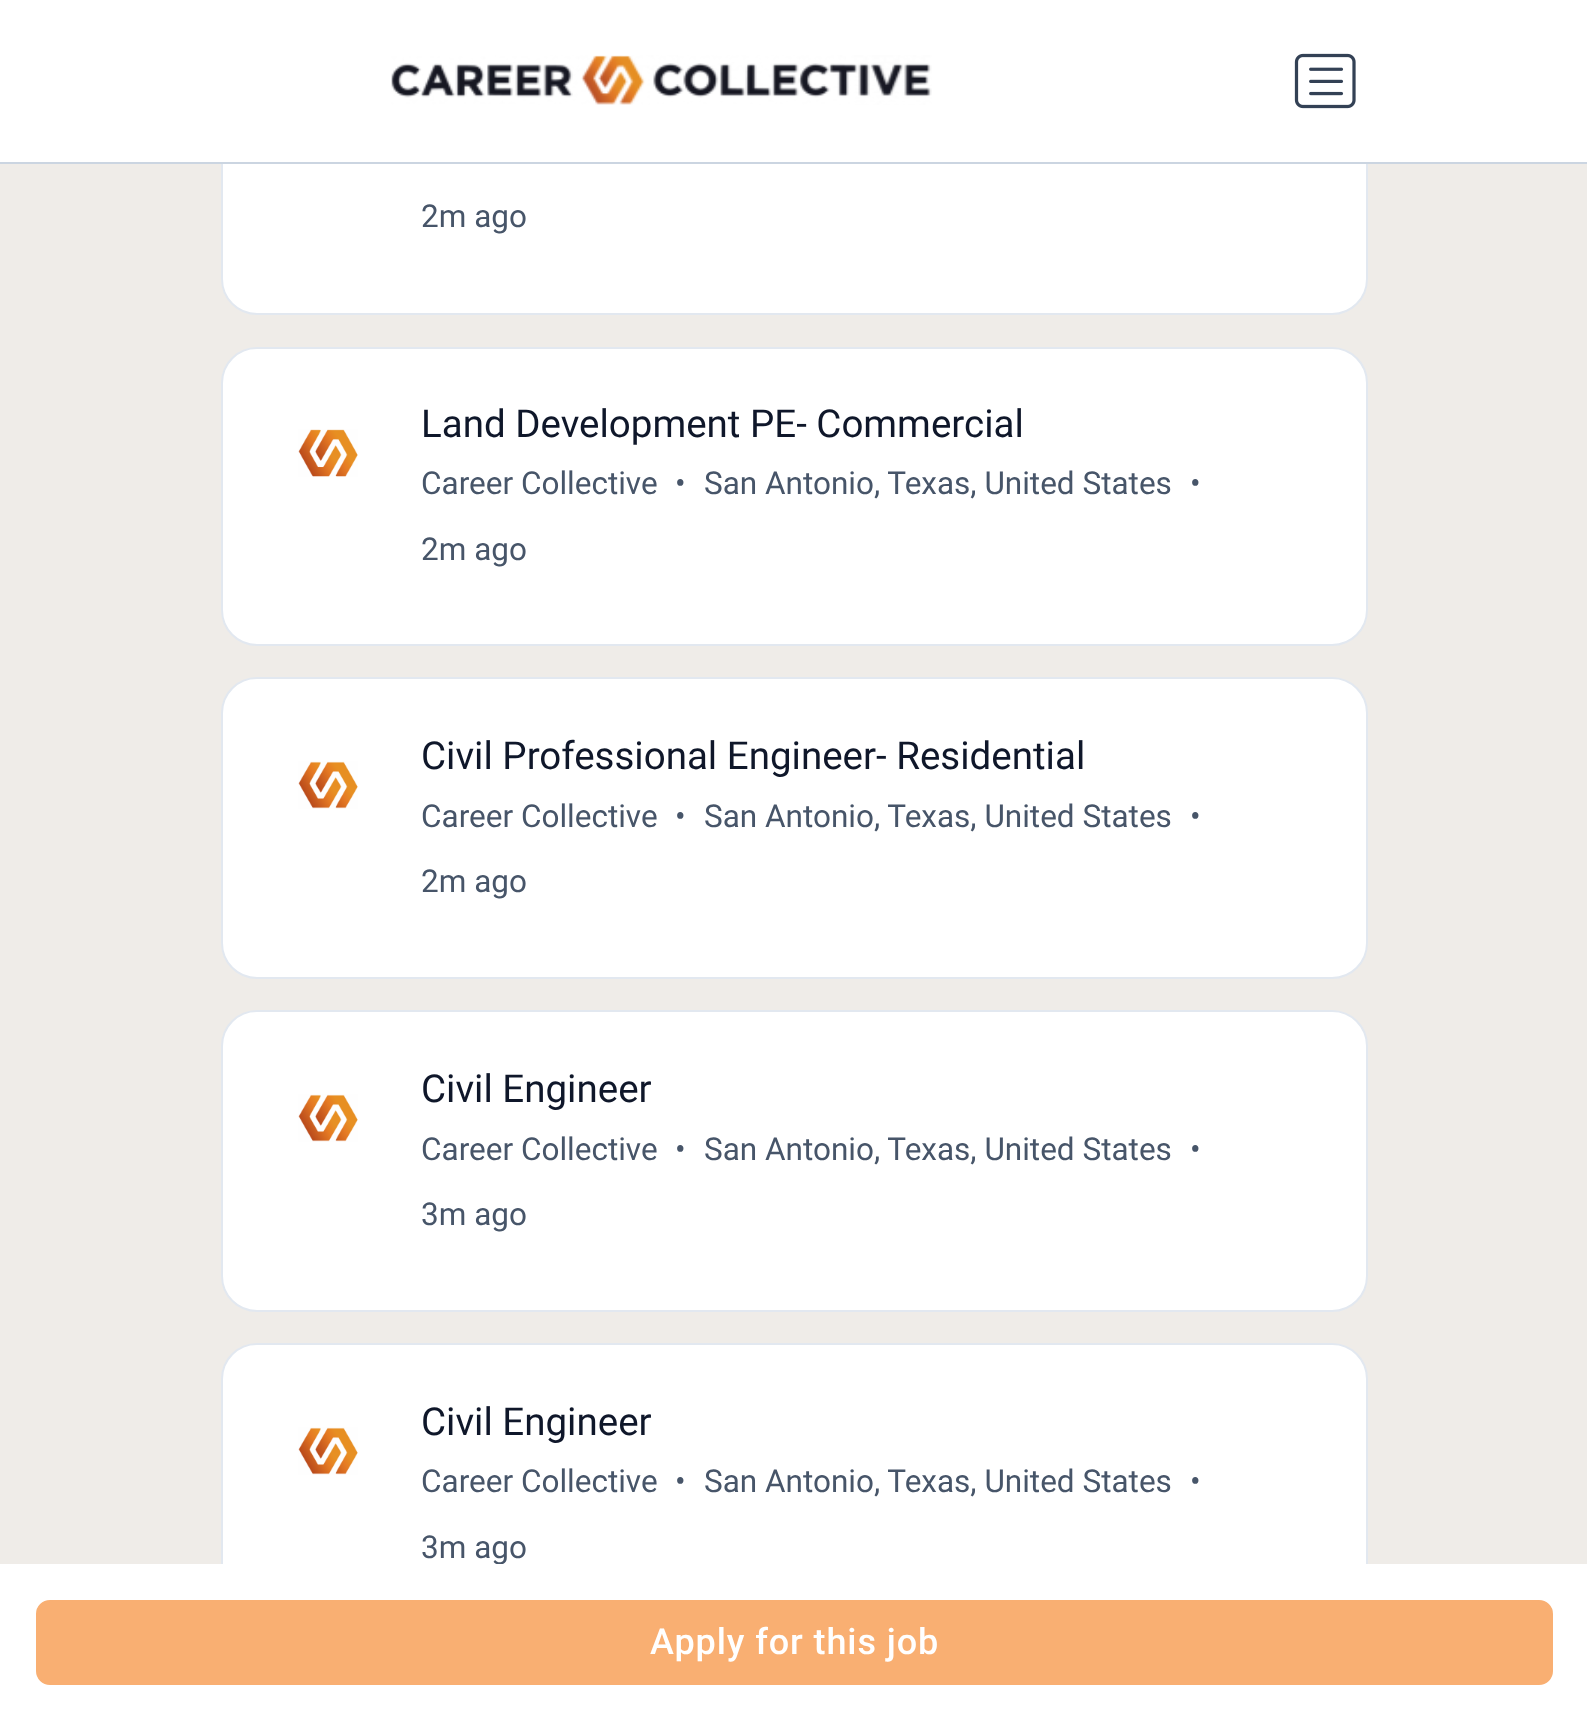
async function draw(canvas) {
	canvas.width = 1587;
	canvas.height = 1720;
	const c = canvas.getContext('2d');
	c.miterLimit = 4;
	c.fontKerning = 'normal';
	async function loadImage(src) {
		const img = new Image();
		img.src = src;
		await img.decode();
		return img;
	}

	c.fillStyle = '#efece8';
	c.fillRect(0, 0, 1587, 1720);
	c.fillStyle = '#fff';
	c.beginPath();
	c.roundRect(222, 15, 1145, 299, 35);
	c.fill();
	c.strokeStyle = '#e2e8f0';
	c.lineWidth = 2;
	c.stroke();
	c.fillRect(0, 0, 1587, 162);
	c.fillStyle = '#cbd5e1';
	c.fillRect(0, 162, 1587, 2);
	c.drawImage(await loadImage('img1.png'), 391, 55, 541, 50);
	c.drawImage(await loadImage('img2.png'), 1294, 53, 62, 56);
	c.font = '31.5px Roboto';
	c.fillStyle = '#475569';
	c.fillText('2m ago', 421, 227);
	c.fillStyle = '#fff';
	c.beginPath();
	c.roundRect(222, 348, 1145, 297, 35);
	c.fill();
	c.stroke();
	c.drawImage(await loadImage('img3.png'), 298, 429, 60, 48);
	c.font = '38.5px Roboto';
	c.fillStyle = '#0f172a';
	c.fillText('Land Development PE- Commercial', 421, 437);
	c.font = '31.5px Roboto';
	c.fillStyle = '#475569';
	for (const [text, x, y] of [
		['Career Collective', 421, 494],
		['•', 675, 494],
		['San Antonio, Texas, United States', 704, 494],
		['•', 1190, 494],
		['2m ago', 421, 560],
	]) {
		c.fillText(text, x, y);
	}
	c.fillStyle = '#fff';
	c.beginPath();
	c.roundRect(222, 678, 1145, 300, 35);
	c.fill();
	c.stroke();
	c.drawImage(await loadImage('img4.png'), 298, 761, 60, 48);
	c.font = '38.5px Roboto';
	c.fillStyle = '#0f172a';
	c.fillText('Civil Professional Engineer- Residential', 421, 769);
	c.font = '31.5px Roboto';
	c.fillStyle = '#475569';
	for (const [text, x, y] of [
		['Career Collective', 421, 827],
		['•', 675, 827],
		['San Antonio, Texas, United States', 704, 827],
		['•', 1190, 827],
		['2m ago', 421, 892],
	]) {
		c.fillText(text, x, y);
	}
	c.fillStyle = '#fff';
	c.beginPath();
	c.roundRect(222, 1011, 1145, 300, 35);
	c.fill();
	c.stroke();
	c.drawImage(await loadImage('img4.png'), 298, 1094, 60, 48);
	c.font = '38.5px Roboto';
	c.fillStyle = '#0f172a';
	c.fillText('Civil Engineer', 421, 1102);
	c.font = '31.5px Roboto';
	c.fillStyle = '#475569';
	for (const [text, x, y] of [
		['Career Collective', 421, 1160],
		['•', 675, 1160],
		['San Antonio, Texas, United States', 704, 1160],
		['•', 1190, 1160],
		['3m ago', 421, 1225],
	]) {
		c.fillText(text, x, y);
	}
	c.fillStyle = '#fff';
	c.beginPath();
	c.roundRect(222, 1344, 1145, 300, 35);
	c.fill();
	c.stroke();
	c.drawImage(await loadImage('img4.png'), 298, 1427, 60, 48);
	c.font = '38.5px Roboto';
	c.fillStyle = '#0f172a';
	c.fillText('Civil Engineer', 421, 1435);
	c.font = '31.5px Roboto';
	c.fillStyle = '#475569';
	for (const [text, x, y] of [
		['Career Collective', 421, 1492],
		['•', 675, 1492],
		['San Antonio, Texas, United States', 704, 1492],
		['•', 1190, 1492],
		['3m ago', 421, 1558],
	]) {
		c.fillText(text, x, y);
	}
	c.fillStyle = '#fff';
	c.fillRect(0, 1564, 1587, 156);
	c.fillStyle = '#f9af72';
	c.beginPath();
	c.roundRect(37, 1601, 1515, 83, 13);
	c.fill();
	c.strokeStyle = '#f9af72';
	c.stroke();
	c.letterSpacing = '0.9px';
	c.font = '500 36px Roboto';
	c.fillStyle = '#fff';
	c.fillText('Apply for this job', 650, 1654);
}

draw(document.querySelector('canvas'));
